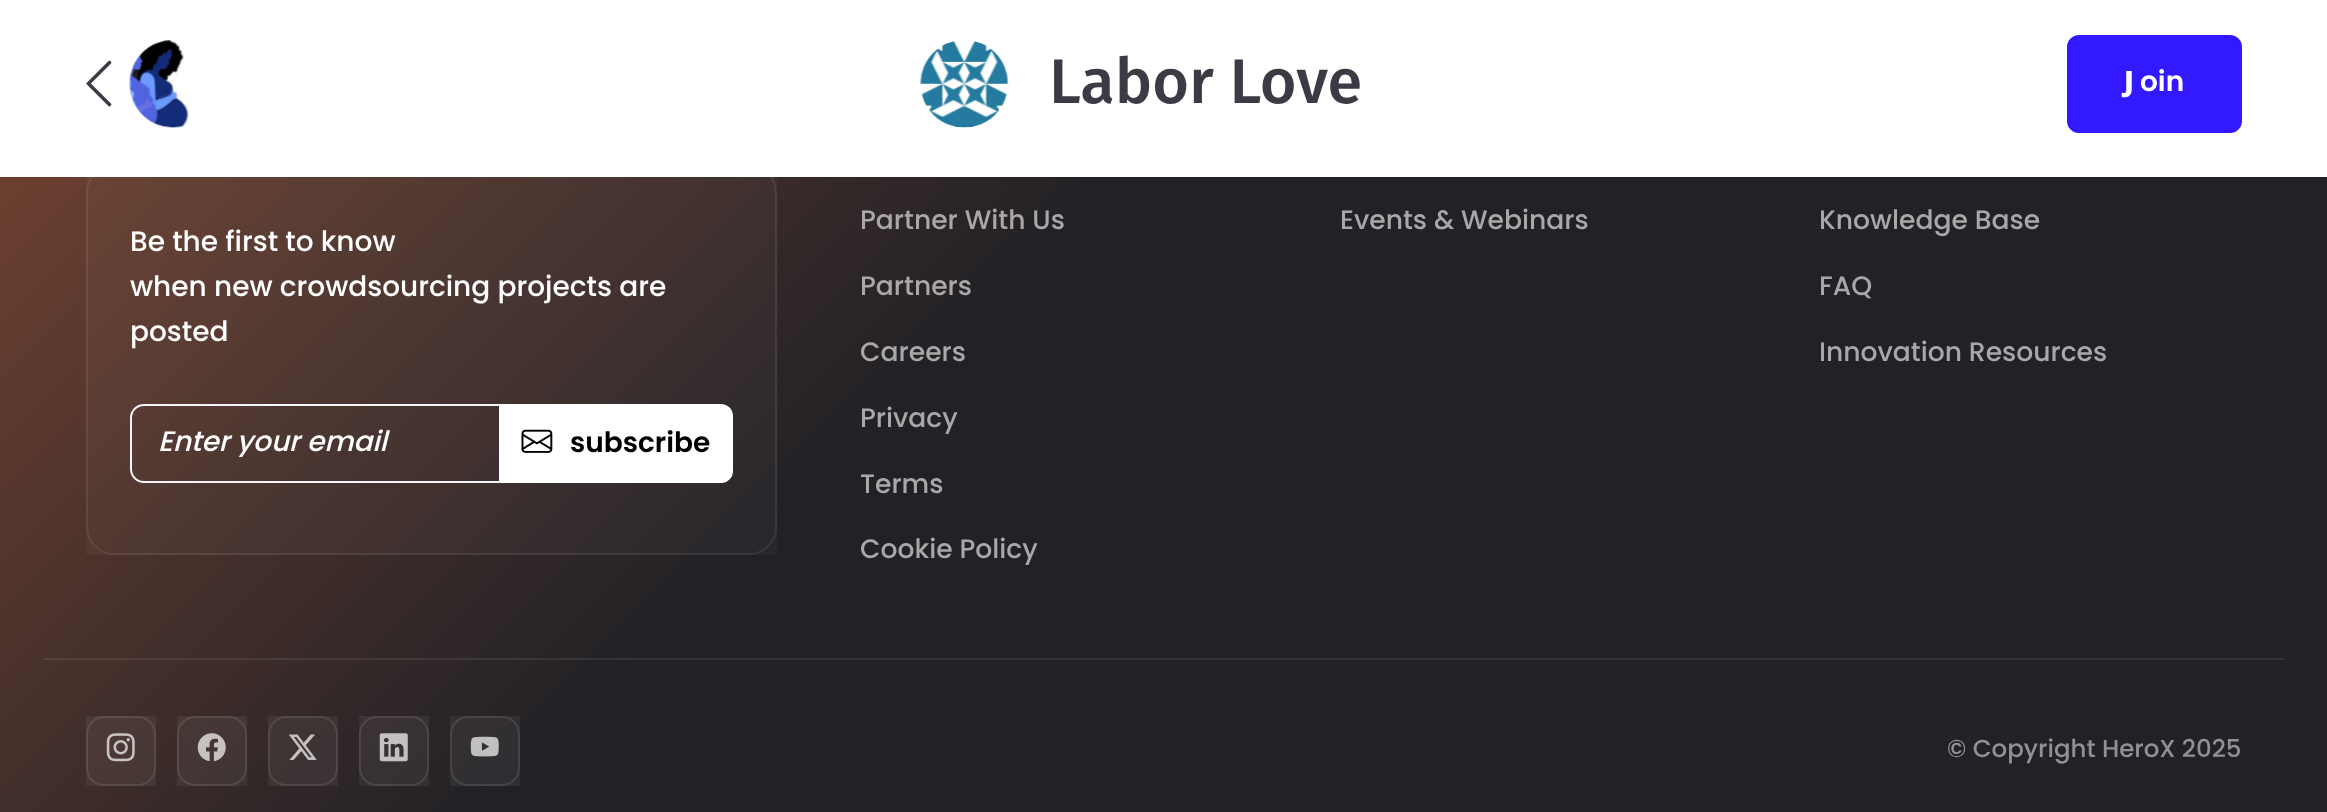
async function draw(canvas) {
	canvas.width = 2327;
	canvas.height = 812;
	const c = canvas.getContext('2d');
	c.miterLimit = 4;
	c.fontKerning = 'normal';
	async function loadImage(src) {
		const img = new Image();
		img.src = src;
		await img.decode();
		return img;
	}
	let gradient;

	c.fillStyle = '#fff';
	c.fillRect(0, 0, 2327, 812);
	c.drawImage(await loadImage('img1.png'), 86, 60, 26, 47);
	c.drawImage(await loadImage('img2.png'), 129, 40, 60, 89);
	c.drawImage(await loadImage('img3.png'), 920, 41, 89, 87);
	c.font = '500 63px Fira Sans';
	c.fillStyle = '#3d3a46';
	c.fillText('Labor Love', 1049, 103);
	c.fillStyle = '#3319ff';
	c.beginPath();
	c.roundRect(2068, 36, 173, 96, 11);
	c.fill();
	c.strokeStyle = '#3319ff';
	c.lineWidth = 2;
	c.stroke();
	c.font = '900 28px Noto Sans';
	c.fillStyle = '#fff';
	c.fillText('J', 2124, 91);
	c.font = '600 28px Poppins';
	c.fillText('oin', 2140, 91);
	gradient = c.createLinearGradient(-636, -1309, 2064, 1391);
	gradient.addColorStop(0, '#f87a43');
	gradient.addColorStop(0.6, '#222126');
	gradient.addColorStop(1, '#222126');
	c.fillStyle = gradient;
	c.fillRect(0, 177, 2327, 635);
	gradient = c.createLinearGradient(-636, -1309, 2064, 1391);
	gradient.addColorStop(0, '#f98552');
	gradient.addColorStop(0.6, '#343337');
	gradient.addColorStop(1, '#343337');
	c.fillStyle = gradient;
	c.fillRect(44, 658, 2240, 2);
	c.fillStyle = '#ffffff08';
	c.fillRect(86, 177, 691, 378);
	c.beginPath();
	c.roundRect(87, 166, 689, 388, 27);
	c.strokeStyle = '#ffffff14';
	c.stroke();
	c.font = '500 28px Poppins';
	c.fillStyle = '#fff';
	for (const [text, x, y] of [
		['Be the first to know', 130, 251],
		['when new crowdsourcing projects are', 130, 296],
		['posted', 130, 341],
	]) {
		c.fillText(text, x, y);
	}
	c.beginPath();
	c.roundRect(131, 405, 369, 77, [13, 0, 0, 13]);
	c.strokeStyle = '#f4f4f9';
	c.stroke();
	c.save();
	c.beginPath();
	c.rect(158, 429, 315, 28);
	c.clip();
	c.font = 'italic 500 28px Poppins';
	c.fillText('Enter your email', 158, 451);
	c.restore();
	c.beginPath();
	c.roundRect(500, 405, 232, 77, [0, 11, 11, 0]);
	c.fill();
	c.strokeStyle = '#fff';
	c.stroke();
	c.drawImage(await loadImage('img4.png'), 521, 429, 32, 24);
	c.font = '600 28px Poppins';
	c.fillStyle = '#000';
	c.fillText('subscribe', 570, 452);
	c.font = '500 26.6px Poppins';
	c.fillStyle = '#aaa7a9';
	for (const [text, x, y] of [
		['Partner With Us', 860, 229],
		['Partners', 860, 295],
		['Careers', 860, 361],
		['Privacy', 860, 427],
		['Terms', 860, 493],
		['Cookie Policy', 860, 558],
		['Events & Webinars', 1340, 229],
		['Knowledge Base', 1819, 229],
		['FAQ', 1819, 295],
		['Innovation Resources', 1819, 361],
	]) {
		c.fillText(text, x, y);
	}
	c.fillStyle = '#ffffff0f';
	c.fillRect(86, 716, 70, 70);
	c.beginPath();
	c.roundRect(87, 717, 68, 68, 17);
	c.strokeStyle = '#ffffff1a';
	c.stroke();
	c.drawImage(await loadImage('img5.png'), 106, 733, 29, 29);
	c.fillRect(177, 716, 70, 70);
	c.beginPath();
	c.roundRect(178, 717, 68, 68, 17);
	c.stroke();
	c.drawImage(await loadImage('img6.png'), 197, 733, 29, 29);
	c.fillRect(268, 716, 70, 70);
	c.beginPath();
	c.roundRect(269, 717, 68, 68, 17);
	c.stroke();
	c.drawImage(await loadImage('img7.png'), 288, 734, 29, 26);
	c.fillRect(359, 716, 70, 70);
	c.beginPath();
	c.roundRect(360, 717, 68, 68, 17);
	c.stroke();
	c.drawImage(await loadImage('img8.png'), 379, 733, 29, 29);
	c.fillRect(450, 716, 70, 70);
	c.beginPath();
	c.roundRect(451, 717, 68, 68, 17);
	c.stroke();
	c.drawImage(await loadImage('img9.png'), 470, 736, 29, 21);
	c.font = '500 24.5px Poppins';
	c.fillStyle = '#919093';
	c.fillText('© Copyright HeroX 2025', 1947, 757);
}

draw(document.querySelector('canvas'));
